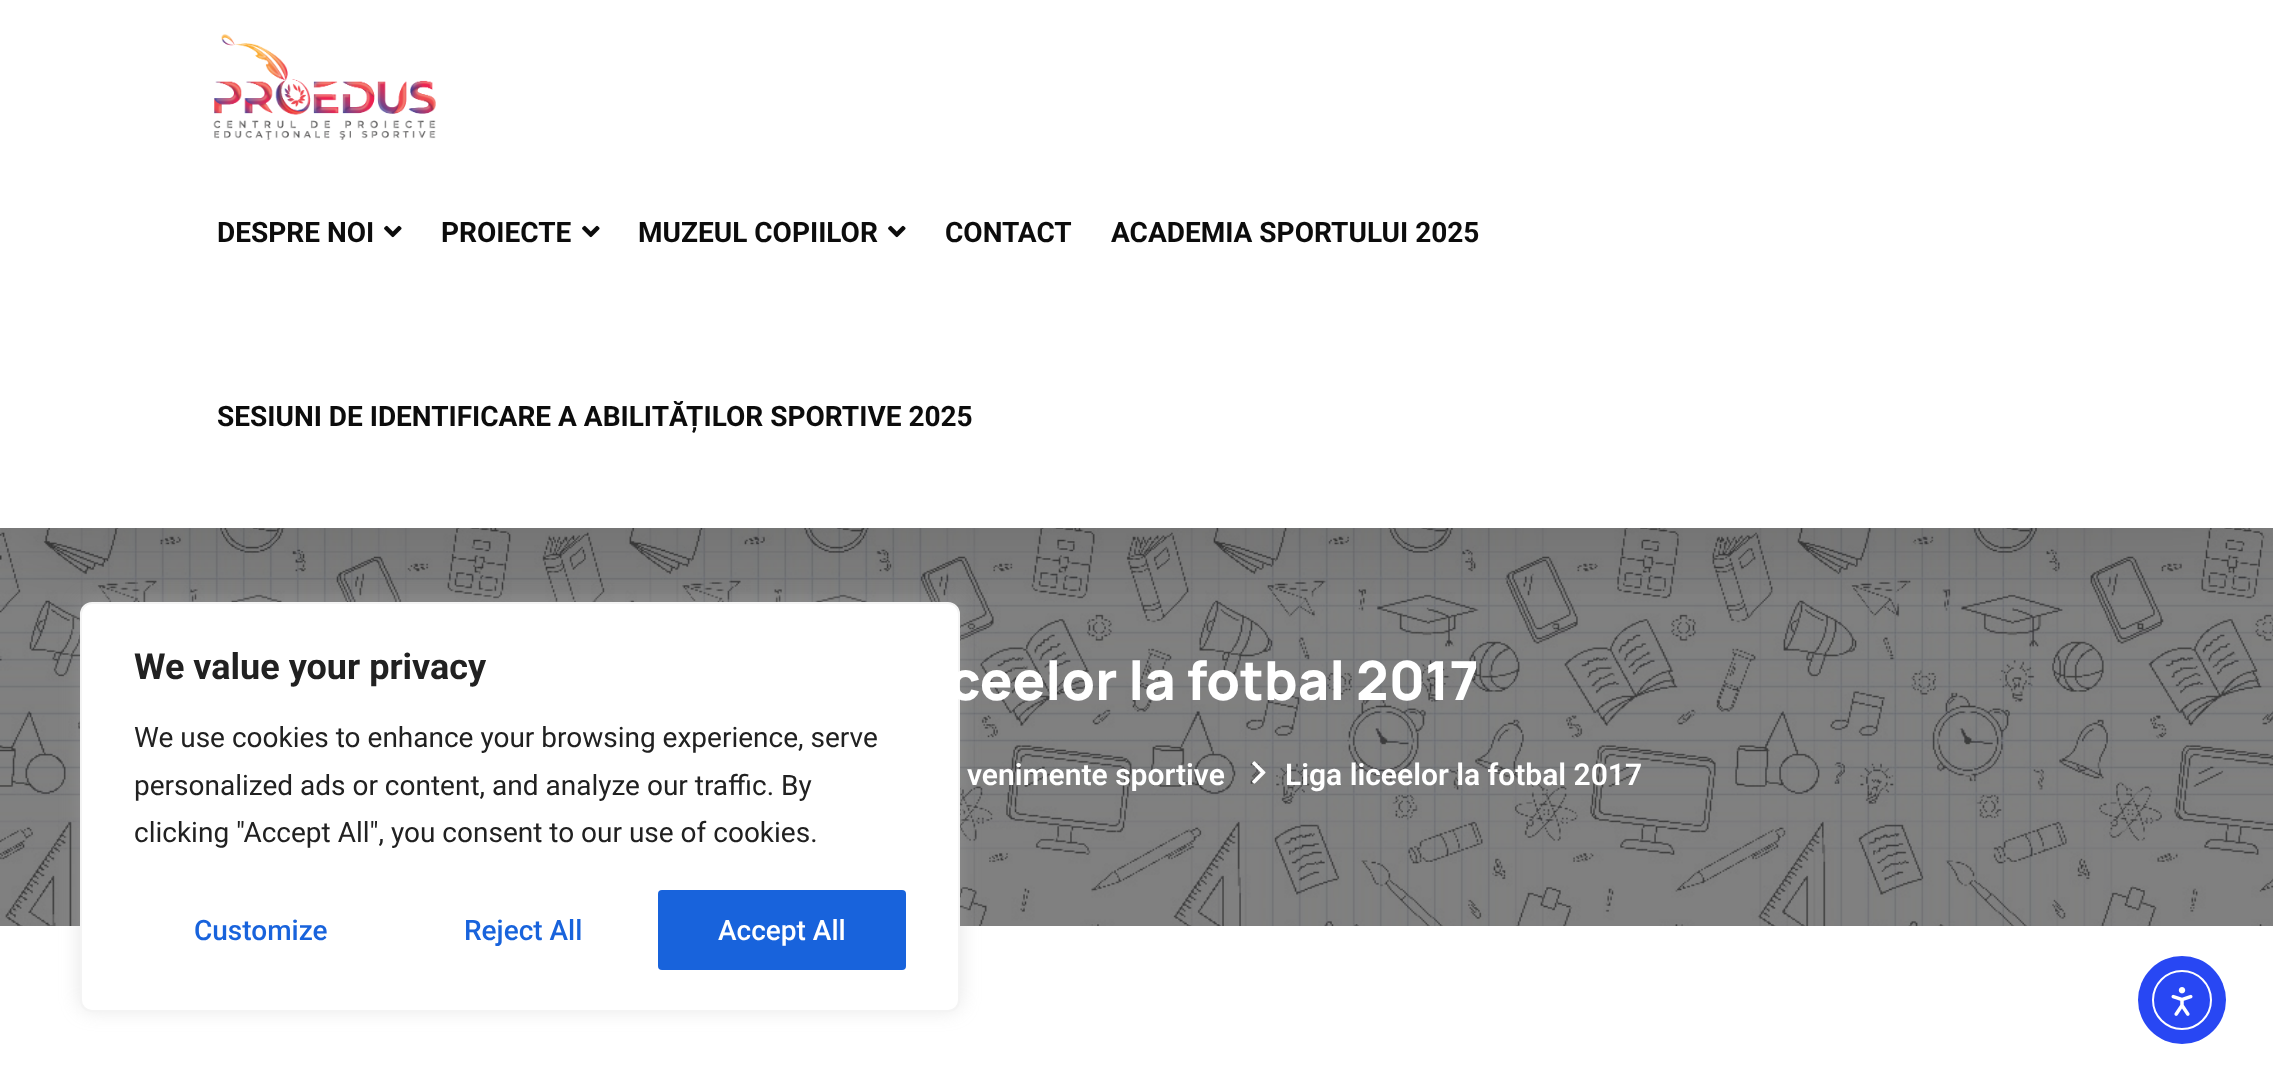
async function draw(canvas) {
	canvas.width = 2273;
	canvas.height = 1091;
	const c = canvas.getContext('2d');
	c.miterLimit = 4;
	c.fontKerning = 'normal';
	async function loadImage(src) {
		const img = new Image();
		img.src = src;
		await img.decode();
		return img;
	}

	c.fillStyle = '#fff';
	c.fillRect(0, 0, 2273, 1091);
	c.drawImage(await loadImage('img3.png'), 0, 528, 2273, 398);
	c.save();
	c.beginPath();
	c.rect(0, 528, 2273, 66);
	c.clip();
	c.fillStyle = '#00000026';
	c.filter = 'blur(50px)';
	c.beginPath();
	c.rect(0, 10, 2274, 528);
	c.fill();
	c.filter = 'none';
	c.restore();
	c.drawImage(await loadImage('img1.png'), 213, 34, 223, 106);
	c.font = 'bold 28px Roboto';
	c.fillStyle = '#0c0c0c';
	c.fillText('DESPRE NOI', 217, 242);
	c.drawImage(await loadImage('img2.png'), 384, 225, 18, 13);
	c.fillText('PROIECTE', 441, 242);
	c.drawImage(await loadImage('img2.png'), 582, 225, 18, 13);
	c.fillText('MUZEUL COPIILOR', 638, 242);
	c.drawImage(await loadImage('img2.png'), 888, 225, 18, 13);
	for (const [text, x, y] of [
		['CONTACT', 945, 242],
		['ACADEMIA SPORTULUI 2025', 1111, 242],
		['SESIUNI DE IDENTIFICARE A ABILITĂȚILOR SPORTIVE 2025', 217, 426],
	]) {
		c.fillText(text, x, y);
	}
	c.fillStyle = '#acabab4d';
	c.filter = 'blur(10px)';
	c.beginPath();
	c.roundRect(80, 600, 880, 410, 12);
	c.fill();
	c.filter = 'none';
	c.fillStyle = '#fff';
	c.beginPath();
	c.roundRect(81, 603, 878, 408, 11);
	c.fill();
	c.strokeStyle = '#f4f4f4';
	c.lineWidth = 2;
	c.stroke();
	c.font = 'bold 36px Roboto';
	c.fillStyle = '#212121';
	c.fillText('We value your privacy', 134, 679);
	c.font = '28px Roboto';
	for (const [text, x, y] of [
		['We use cookies to enhance your browsing experience, serve', 134, 747],
		['personalized ads or content, and analyze our traffic. By', 134, 795],
		['clicking "Accept All", you consent to our use of cookies.', 134, 842],
	]) {
		c.fillText(text, x, y);
	}
	c.font = '500 28px Roboto';
	c.fillStyle = '#1863dc';
	c.fillText('Customize', 194, 940);
	c.fillText('Reject All', 464, 940);
	c.beginPath();
	c.roundRect(658, 890, 248, 80, 4);
	c.fill();
	c.fillStyle = '#fff';
	c.fillText('Accept All', 718, 940);
	c.font = '800 54px Manrope';
	c.fillText('ceelor la fotbal 2017', 949, 700);
	c.font = '600 30px Roboto';
	c.fillText('venimente sportive', 967, 785);
	c.drawImage(await loadImage('img4.png'), 1252, 761, 14, 23);
	c.fillText('Liga liceelor la fotbal 2017', 1285, 785);
	c.fillStyle = '#2847f3';
	c.beginPath();
	c.arc(2182, 1000, 44, 0, 2 * Math.PI);
	c.fill();
	c.beginPath();
	c.arc(2182, 1000, 29, 0, 2 * Math.PI);
	c.strokeStyle = '#fff';
	c.stroke();
	c.drawImage(await loadImage('img5.png'), 2171, 987, 22, 29);
}

draw(document.querySelector('canvas'));
